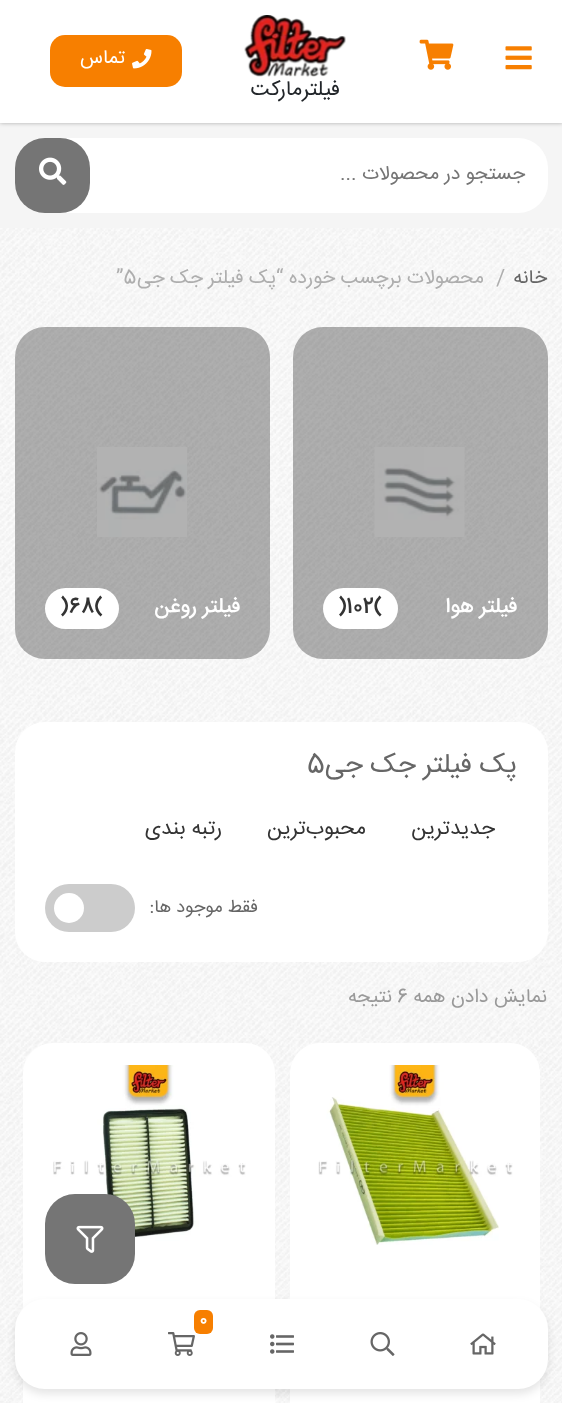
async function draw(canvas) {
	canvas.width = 562;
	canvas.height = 1403;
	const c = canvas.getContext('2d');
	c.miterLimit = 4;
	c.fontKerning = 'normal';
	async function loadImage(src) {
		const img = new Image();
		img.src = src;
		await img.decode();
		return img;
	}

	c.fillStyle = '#fff';
	c.fillRect(0, 0, 562, 1403);
	c.drawImage(await loadImage('img1.png'), 0, 228, 562, 1175);
	c.fillStyle = '#f5f5f5';
	c.fillRect(0, 123, 562, 105);
	c.fillStyle = '#0000004d';
	c.filter = 'blur(2px)';
	c.beginPath();
	c.rect(0, 0, 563, 123);
	c.fill();
	c.filter = 'none';
	c.fillStyle = '#fff';
	c.fillRect(0, 0, 562, 123);
	c.drawImage(await loadImage('img2.png'), 505, 46, 27, 24);
	c.drawImage(await loadImage('img3.png'), 419, 39, 35, 31);
	c.fillStyle = '#f77f00';
	c.beginPath();
	c.roundRect(50, 35, 132, 52, 15);
	c.fill();
	c.drawImage(await loadImage('img4.png'), 132, 49, 20, 20);
	c.direction = 'rtl';
	c.font = '19.5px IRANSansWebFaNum';
	c.fillStyle = '#fff';
	c.fillText('تماس', 125, 63);
	c.drawImage(await loadImage('img5.png'), 244, 15, 102, 62);
	c.font = '21px IRANSansWebFaNum';
	c.fillStyle = '#212529';
	c.fillText('فیلترمارکت', 340, 95);
	c.fillStyle = '#fff';
	c.beginPath();
	c.roundRect(15, 138, 533, 75, 30);
	c.fill();
	c.font = '19.5px IRANSansWebFaNum';
	c.fillStyle = '#757575';
	c.fillText('جستجو در محصولات ...', 525, 179);
	c.beginPath();
	c.roundRect(15, 138, 75, 75, 30);
	c.fill();
	c.drawImage(await loadImage('img6.png'), 39, 157, 28, 28);
	c.fillStyle = '#666';
	c.fillText('خانه', 547, 283);
	c.direction = 'ltr';
	c.font = '21px IRANSansWebFaNum';
	c.fillStyle = '#aeaeae';
	c.fillText('/', 496, 284);
	c.direction = 'rtl';
	c.font = '19.5px IRANSansWebFaNum';
	c.fillText('محصولات برچسب خورده “پک فیلتر جک جی', 484, 283);
	c.direction = 'ltr';
	c.fillText('”5', 116, 283);
	c.drawImage(await loadImage('img7.png'), 374, 447, 91, 90);
	c.fillStyle = '#0000004d';
	c.beginPath();
	c.roundRect(293, 327, 255, 332, 30);
	c.fill();
	c.direction = 'rtl';
	c.font = '500 21px IRANSansWebFaNum';
	c.fillStyle = '#fff';
	c.fillText('فیلتر هوا', 517, 612);
	c.beginPath();
	c.roundRect(323, 588, 75, 41, 20.5);
	c.fill();
	c.direction = 'ltr';
	c.fillStyle = '#333';
	c.fillText('102(', 346, 612);
	c.fillText(')', 338, 612);
	c.drawImage(await loadImage('img8.png'), 97, 447, 90, 90);
	c.fillStyle = '#0000004d';
	c.beginPath();
	c.roundRect(15, 327, 255, 332, 30);
	c.fill();
	c.direction = 'rtl';
	c.fillStyle = '#fff';
	c.fillText('فیلتر روغن', 240, 612);
	c.beginPath();
	c.roundRect(45, 588, 74, 41, 20.5);
	c.fill();
	c.direction = 'ltr';
	c.fillStyle = '#333';
	c.fillText('68(', 69, 612);
	c.fillText(')', 60, 612);
	c.fillStyle = '#fff';
	c.beginPath();
	c.roundRect(15, 722, 533, 240, 30);
	c.fill();
	c.direction = 'rtl';
	c.font = '27px IRANSansWebFaNum';
	c.fillStyle = '#666';
	c.fillText('پک فیلتر جک جی', 517, 772);
	c.direction = 'ltr';
	c.fillText('5', 307, 772);
	c.direction = 'rtl';
	c.font = '21px IRANSansWebFaNum';
	c.fillStyle = '#333';
	for (const [text, x, y] of [
		['جدیدترین', 495, 834],
		['محبوب‌ترین', 366, 834],
		['رتبه بندی', 222, 834],
	]) {
		c.fillText(text, x, y);
	}
	c.font = '18px IRANSansWebFaNum';
	c.fillStyle = '#666';
	c.fillText('فقط موجود ها:', 258, 912);
	c.fillStyle = '#ccc';
	c.beginPath();
	c.roundRect(45, 884, 90, 48, 24);
	c.fill();
	c.fillStyle = '#fff';
	c.beginPath();
	c.arc(69, 908, 15, 0, 2 * Math.PI);
	c.fill();
	c.font = '19.5px IRANSansWebFaNum';
	c.fillStyle = '#999';
	c.fillText('نمایش دادن همه', 547, 1002);
	c.direction = 'ltr';
	c.fillText('6', 397, 1002);
	c.direction = 'rtl';
	c.fillText('نتیجه', 392, 1002);
	c.fillStyle = '#fff';
	c.beginPath();
	c.roundRect(290, 1043, 250, 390, 30);
	c.fill();
	c.drawImage(await loadImage('img9.png'), 318, 1065, 195, 180);
	c.beginPath();
	c.roundRect(23, 1043, 252, 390, 30);
	c.fill();
	c.drawImage(await loadImage('img10.png'), 53, 1065, 193, 176);
	c.fillStyle = '#757575';
	c.beginPath();
	c.roundRect(45, 1194, 90, 90, 30);
	c.fill();
	c.drawImage(await loadImage('img11.png'), 76, 1225, 28, 28);
	c.fillStyle = '#0000001a';
	c.filter = 'blur(4.5px)';
	c.beginPath();
	c.roundRect(15, 1304, 533, 90, 30);
	c.fill();
	c.filter = 'none';
	c.fillStyle = '#fff';
	c.beginPath();
	c.roundRect(15, 1299, 533, 90, 30);
	c.fill();
	c.drawImage(await loadImage('img12.png'), 168, 1332, 27, 24);
	c.fillStyle = '#f77f00';
	c.beginPath();
	c.roundRect(194, 1310, 19, 24, 6);
	c.fill();
	c.direction = 'ltr';
	c.font = 'bold 16px IRANSansWebFaNum';
	c.fillStyle = '#fff';
	c.fillText('0', 200, 1324);
	c.drawImage(await loadImage('img13.png'), 470, 1333, 26, 22);
	c.drawImage(await loadImage('img14.png'), 370, 1332, 25, 24);
	c.drawImage(await loadImage('img15.png'), 270, 1334, 24, 20);
	c.drawImage(await loadImage('img16.png'), 70, 1332, 22, 24);
}

draw(document.querySelector('canvas'));
